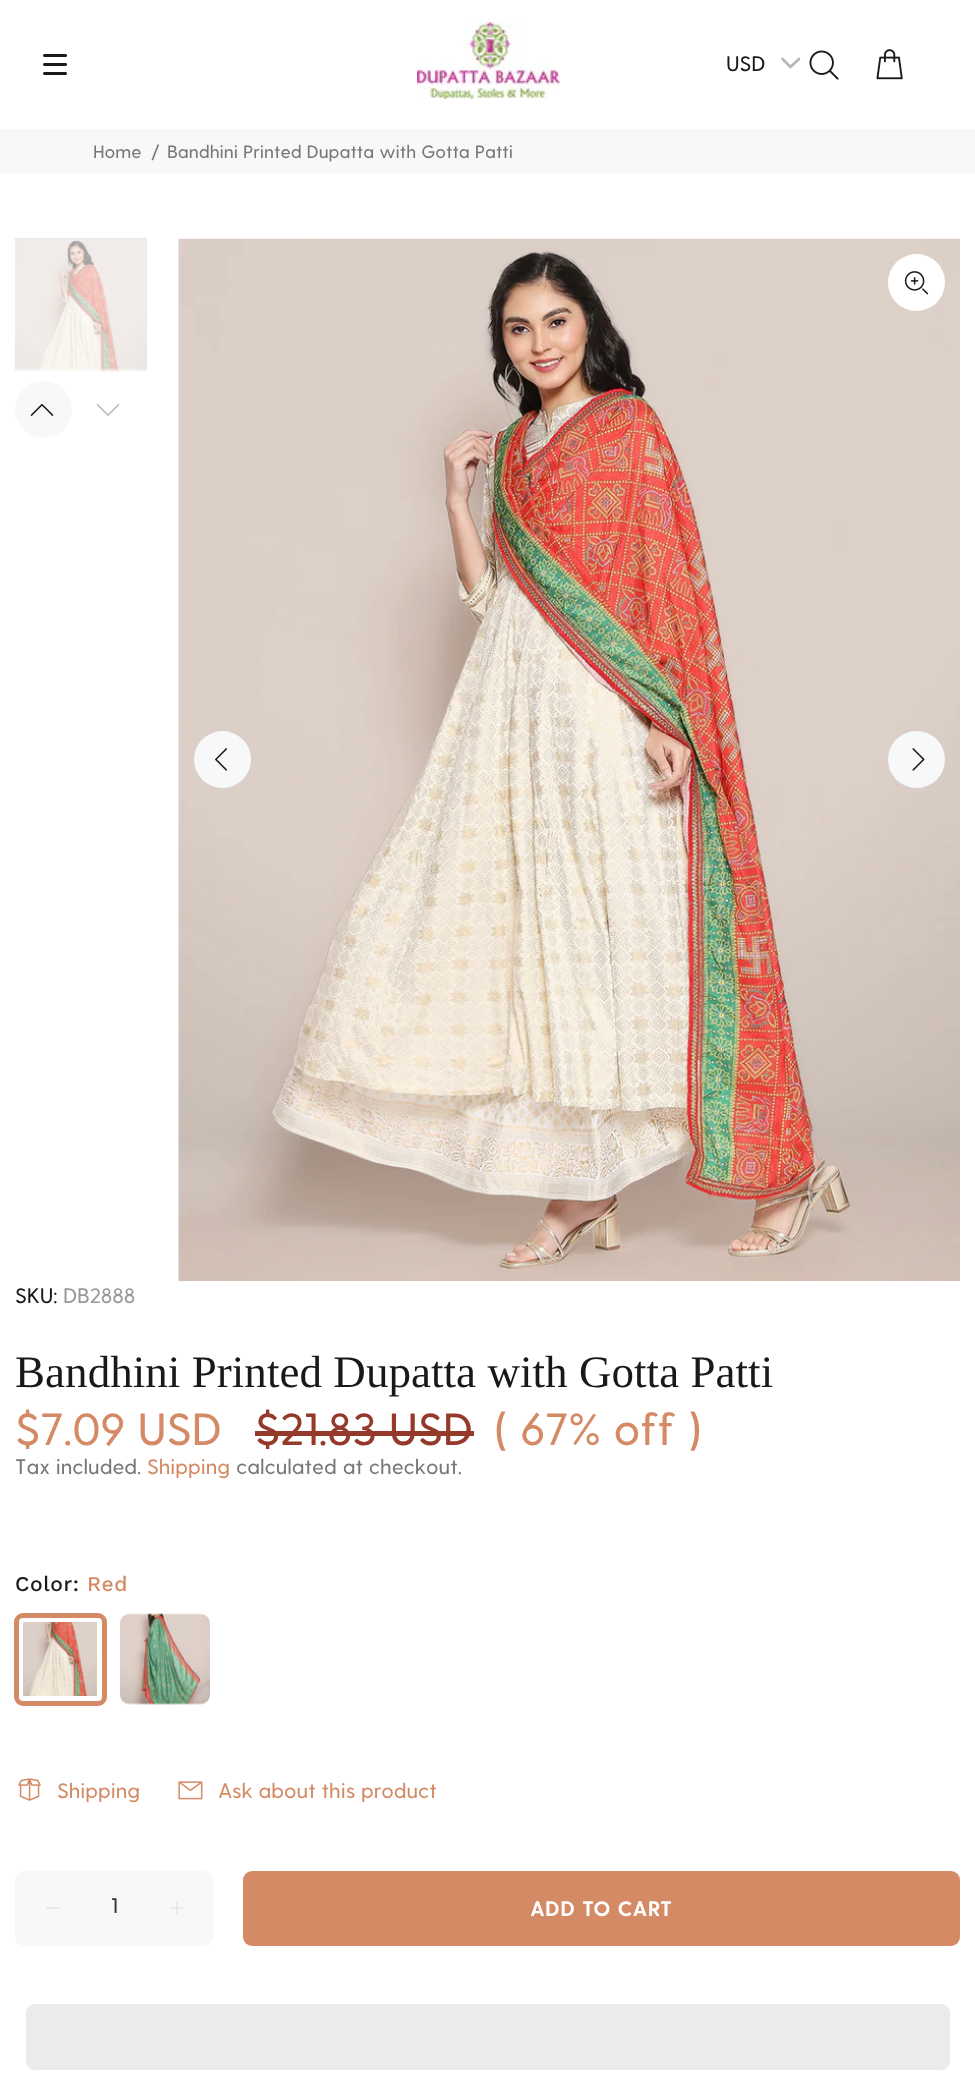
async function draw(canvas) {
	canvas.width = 975;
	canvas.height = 2079;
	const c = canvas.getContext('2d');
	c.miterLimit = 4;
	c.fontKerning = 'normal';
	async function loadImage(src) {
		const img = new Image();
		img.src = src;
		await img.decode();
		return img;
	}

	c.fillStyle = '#fff';
	c.fillRect(0, 0, 975, 2079);
	c.drawImage(await loadImage('img1.png'), 43, 54, 24, 21);
	c.drawImage(await loadImage('img2.png'), 417, 22, 143, 77);
	c.font = '500 21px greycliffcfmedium';
	c.fillStyle = '#191919';
	c.fillText('USD', 726, 71);
	c.beginPath();
	c.moveTo(782.5, 59);
	c.lineTo(790.5, 67);
	c.lineTo(799, 59);
	c.strokeStyle = '#b7b7b7';
	c.lineWidth = 2.7;
	c.lineCap = 'round';
	c.lineJoin = 'round';
	c.stroke();
	c.drawImage(await loadImage('img3.png'), 809, 50, 30, 30);
	c.drawImage(await loadImage('img4.png'), 876, 49, 27, 31);
	c.fillStyle = '#f7f8fa';
	c.fillRect(0, 129, 975, 45);
	c.font = '500 18px greycliffcfmedium';
	c.fillStyle = '#777';
	for (const [text, x, y] of [
		['Home', 93, 158],
		['/', 151, 158],
		['Bandhini Printed Dupatta with Gotta Patti', 167, 158],
	]) {
		c.fillText(text, x, y);
	}
	c.drawImage(await loadImage('img5.png'), 15, 238, 132, 151);
	c.fillStyle = '#f7f8fa';
	c.beginPath();
	c.arc(43.5, 409.5, 28.5, 0, 2 * Math.PI);
	c.fill();
	c.drawImage(await loadImage('img6.png'), 30, 404, 24, 12);
	c.drawImage(await loadImage('img7.png'), 96, 404, 24, 12);
	c.drawImage(await loadImage('img8.png'), 178, 238, 782, 1043);
	c.fillStyle = '#fff';
	c.beginPath();
	c.arc(916.5, 282.5, 28.5, 0, 2 * Math.PI);
	c.fill();
	c.drawImage(await loadImage('img9.png'), 904, 271, 25, 24);
	c.fillStyle = '#f7f8fa';
	c.beginPath();
	c.arc(222.5, 759.5, 28.5, 0, 2 * Math.PI);
	c.fill();
	c.drawImage(await loadImage('img10.png'), 215, 748, 12, 23);
	c.beginPath();
	c.arc(916.5, 759.5, 28.5, 0, 2 * Math.PI);
	c.fill();
	c.drawImage(await loadImage('img11.png'), 912, 748, 13, 23);
	c.font = '500 21px greycliffcfmedium';
	c.fillStyle = '#191919';
	c.fillText('SKU:', 15, 1303);
	c.fillStyle = '#999';
	c.fillText('DB2888', 63, 1303);
	c.letterSpacing = '0.05px';
	c.font = '45px Liberation Serif';
	c.fillStyle = '#191919';
	c.fillText('Bandhini Printed Dupatta with Gotta Patti', 15, 1387);
	c.letterSpacing = '0px';
	c.font = '500 45px greycliffcfmedium';
	c.fillStyle = '#d48a65';
	c.fillText('$7.09 USD', 15, 1445);
	c.fillStyle = '#95392a';
	c.fillText('$21.83 USD', 255, 1445);
	c.fillRect(255, 1431, 219, 5);
	c.fillStyle = '#d48a65';
	c.fillText('( 67% off )', 494, 1445);
	c.font = '500 21px greycliffcfmedium';
	c.fillStyle = '#777';
	c.fillText('Tax included.', 15, 1474);
	c.fillStyle = '#d48a65';
	c.fillText('Shipping', 147, 1474);
	c.fillStyle = '#777';
	c.fillText('calculated at checkout.', 236, 1474);
	c.letterSpacing = '0.6px';
	c.font = '500 21px Work Sans';
	c.fillStyle = '#191919';
	c.fillText('Color:', 15, 1591);
	c.fillStyle = '#d48a65';
	c.fillText('Red', 87, 1591);
	c.drawImage(await loadImage('img12.png'), 16, 1613, 81, 83);
	c.beginPath();
	c.roundRect(19, 1618, 82, 82, 5);
	c.strokeStyle = '#fff';
	c.lineWidth = 8;
	c.lineJoin = 'miter';
	c.stroke();
	c.beginPath();
	c.roundRect(16.5, 1615.5, 88, 88, 6.5);
	c.strokeStyle = '#d48a65';
	c.lineWidth = 5;
	c.stroke();
	c.drawImage(await loadImage('img13.png'), 120, 1613, 90, 92);
	c.drawImage(await loadImage('img14.png'), 18, 1778, 23, 23);
	c.letterSpacing = '0px';
	c.font = '500 21px greycliffcfmedium';
	c.fillText('Shipping', 57, 1798);
	c.drawImage(await loadImage('img15.png'), 178, 1781, 25, 19);
	c.fillText('Ask about this product', 218, 1798);
	c.fillStyle = '#f7f8fa';
	c.beginPath();
	c.roundRect(15, 1871, 198, 75, 9);
	c.fill();
	c.drawImage(await loadImage('img16.png'), 46, 1907, 14, 2);
	c.fillStyle = '#333';
	c.fillText('1', 111, 1913);
	c.drawImage(await loadImage('img17.png'), 170, 1901, 14, 14);
	c.fillStyle = '#d48a65';
	c.beginPath();
	c.roundRect(243, 1871, 717, 75, 9);
	c.fill();
	c.letterSpacing = '0.6px';
	c.font = 'bold 21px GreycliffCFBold';
	c.fillStyle = '#fff';
	c.fillText('ADD TO CART', 530, 1916);
	c.fillStyle = '#ebebeb';
	c.beginPath();
	c.roundRect(26, 2004, 924, 66, 9);
	c.fill();
}

draw(document.querySelector('canvas'));
